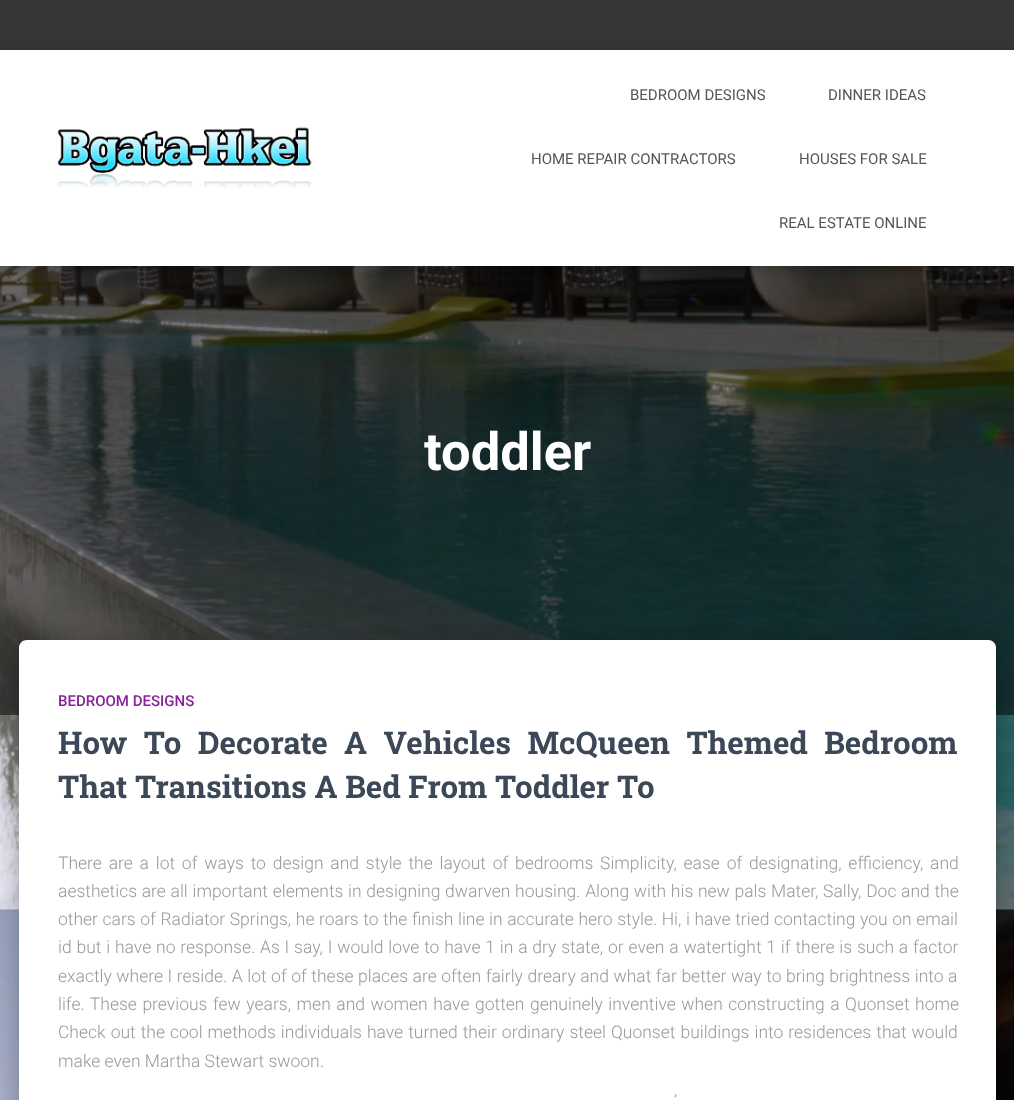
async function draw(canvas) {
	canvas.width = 1014;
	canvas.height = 1100;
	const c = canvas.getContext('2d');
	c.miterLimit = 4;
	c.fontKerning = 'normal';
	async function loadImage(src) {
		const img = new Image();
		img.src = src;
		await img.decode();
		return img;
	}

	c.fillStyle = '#fff';
	c.fillRect(0, 0, 1014, 1100);
	c.drawImage(await loadImage('img1.png'), 0, 266, 1014, 834);
	c.fillStyle = '#363537';
	c.fillRect(0, 0, 1014, 50);
	c.fillStyle = '#00000080';
	c.fillRect(0, 266, 1014, 449);
	c.fillStyle = '#0000001a';
	c.filter = 'blur(3px)';
	c.beginPath();
	c.rect(3, 58, 1010, 211);
	c.fill();
	c.filter = 'none';
	c.fillStyle = '#0000001f';
	c.filter = 'blur(6px)';
	c.beginPath();
	c.rect(0, 51, 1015, 217);
	c.fill();
	c.filter = 'none';
	c.fillStyle = '#0000006b';
	c.filter = 'blur(6px)';
	c.beginPath();
	c.rect(8, 59, 1000, 201);
	c.fill();
	c.filter = 'none';
	c.fillStyle = '#fff';
	c.fillRect(0, 50, 1014, 216);
	c.drawImage(await loadImage('img2.png'), 57, 127, 255, 61);
	c.font = '15px Roboto';
	c.fillStyle = '#555';
	for (const [text, x, y] of [
		['BEDROOM DESIGNS', 630, 100],
		['DINNER IDEAS', 828, 100],
		['HOME REPAIR CONTRACTORS', 531, 164],
		['HOUSES FOR SALE', 799, 164],
		['REAL ESTATE ONLINE', 779, 228],
	]) {
		c.fillText(text, x, y);
	}
	c.font = 'bold 52.5px Roboto';
	c.fillStyle = '#fff';
	c.fillText('toddler', 424, 470);
	c.fillStyle = '#00000033';
	c.filter = 'blur(6px)';
	c.beginPath();
	c.roundRect(25, 656, 965, 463, 1);
	c.fill();
	c.filter = 'none';
	c.fillStyle = '#0000001f';
	c.filter = 'blur(19px)';
	c.beginPath();
	c.roundRect(13, 641, 990, 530, 14);
	c.fill();
	c.filter = 'none';
	c.fillStyle = '#00000024';
	c.filter = 'blur(15px)';
	c.beginPath();
	c.roundRect(16, 658, 983, 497, 10);
	c.fill();
	c.filter = 'none';
	c.fillStyle = '#fff';
	c.beginPath();
	c.moveTo(27, 640);
	c.lineTo(988, 640);
	c.bezierCurveTo(992.5, 640, 996, 643.5, 996, 648);
	c.lineTo(996, 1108);
	c.lineTo(19, 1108);
	c.lineTo(19, 648);
	c.bezierCurveTo(19, 643.5, 22.5, 640, 27, 640);
	c.closePath();
	c.fill();
	c.font = '500 15px Roboto';
	c.fillStyle = '#89229b';
	c.fillText('BEDROOM DESIGNS', 58, 706);
	c.wordSpacing = '8.75px';
	c.font = 'bold 31.25px Roboto Slab';
	c.fillStyle = '#3c4858';
	c.fillText('How To Decorate A Vehicles McQueen Themed Bedroom', 58, 754);
	c.wordSpacing = '0px';
	c.fillText('That Transitions A Bed From Toddler To', 58, 798);
	c.wordSpacing = '2.5px';
	c.font = '300 17.5px Roboto';
	c.fillStyle = '#999';
	c.fillText('There are a lot of ways to design and style the layout of bedrooms Simplicity, ease of designating, efficiency, and', 58, 869);
	c.wordSpacing = '0.4px';
	c.fillText('aesthetics are all important elements in designing dwarven housing. Along with his new pals Mater, Sally, Doc and the', 58, 897);
	c.wordSpacing = '0.3px';
	c.fillText('other cars of Radiator Springs, he roars to the finish line in accurate hero style. Hi, i have tried contacting you on email', 58, 925);
	c.wordSpacing = '0.55px';
	c.fillText('id but i have no response. As I say, I would love to have 1 in a dry state, or even a watertight 1 if there is such a factor', 58, 953);
	c.wordSpacing = '0.25px';
	c.fillText('exactly where I reside. A lot of of these places are often fairly dreary and what far better way to bring brightness into a', 58, 982);
	c.wordSpacing = '1.25px';
	c.fillText('life. These previous few years, men and women have gotten genuinely inventive when constructing a Quonset home', 58, 1010);
	c.wordSpacing = '0.75px';
	c.fillText('Check out the cool methods individuals have turned their ordinary steel Quonset buildings into residences that would', 58, 1038);
	c.wordSpacing = '0px';
	c.fillText('make even Martha Stewart swoon.', 58, 1067);
	c.wordSpacing = '1px';
	c.fillText('’', 674, 1107);
}

draw(document.querySelector('canvas'));
